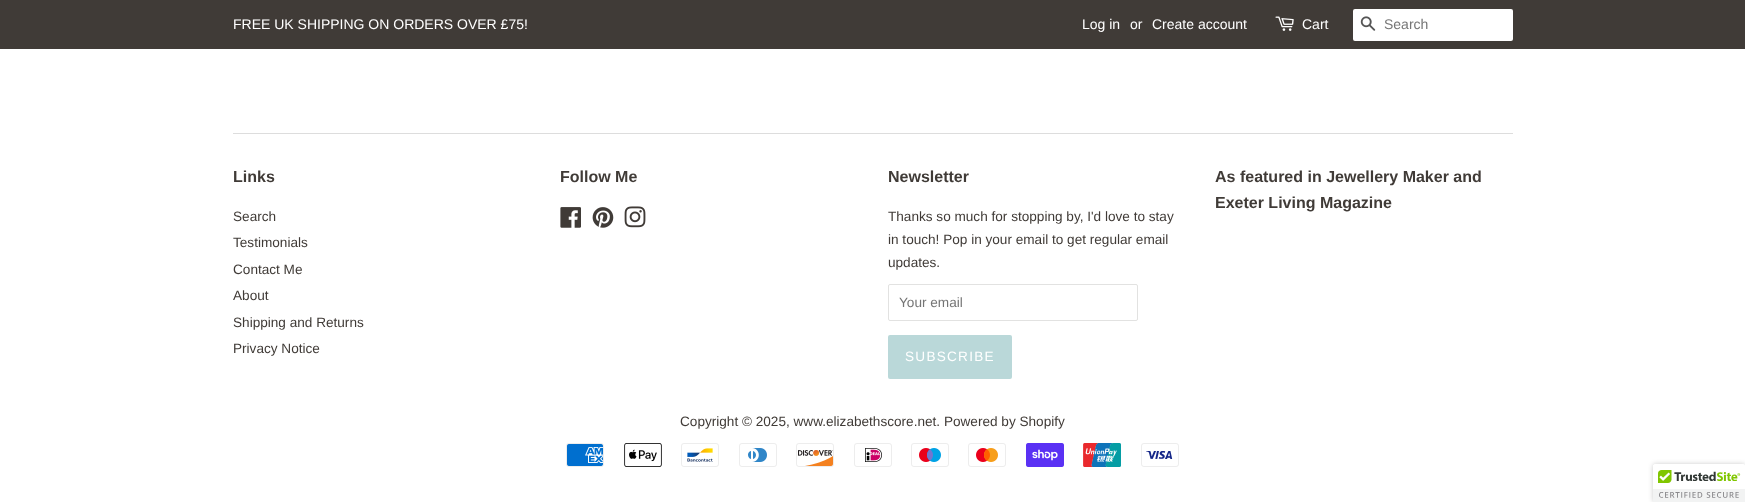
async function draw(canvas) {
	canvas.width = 1745;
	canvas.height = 502;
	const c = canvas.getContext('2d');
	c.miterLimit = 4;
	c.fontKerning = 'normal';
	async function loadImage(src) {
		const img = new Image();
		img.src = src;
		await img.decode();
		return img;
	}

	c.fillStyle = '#fff';
	c.fillRect(0, 0, 1745, 502);
	c.fillStyle = '#403b37';
	c.fillRect(0, 0, 1745, 49);
	c.font = '14px Liberation Sans';
	c.fillStyle = '#fff';
	for (const [text, x, y] of [
		['FREE UK SHIPPING ON ORDERS OVER £75!', 233, 29],
		['Log in', 1082, 29],
		['or', 1130, 29],
		['Create account', 1152, 29],
	]) {
		c.fillText(text, x, y);
	}
	c.drawImage(await loadImage('img1.png'), 1275, 16, 19, 15);
	c.fillText('Cart', 1302, 29);
	c.beginPath();
	c.roundRect(1353, 9, 160, 32, 2);
	c.fill();
	c.drawImage(await loadImage('img2.png'), 1360, 16, 16, 15);
	c.fillStyle = '#757575';
	c.fillText('Search', 1384, 29);
	c.fillStyle = '#ddd';
	c.fillRect(233, 133, 1280, 1);
	c.font = 'bold 16px Liberation Sans';
	c.fillStyle = '#403b37';
	c.fillText('Links', 233, 182);
	c.font = '13.6px Liberation Sans';
	for (const [text, x, y] of [
		['Search', 233, 221],
		['Testimonials', 233, 247],
		['Contact Me', 233, 274],
		['About', 233, 300],
		['Shipping and Returns', 233, 327],
		['Privacy Notice', 233, 353],
	]) {
		c.fillText(text, x, y);
	}
	c.font = 'bold 16px Liberation Sans';
	c.fillText('Follow Me', 560, 182);
	c.drawImage(await loadImage('img3.png'), 560, 207, 21, 21);
	c.drawImage(await loadImage('img4.png'), 592, 207, 22, 21);
	c.drawImage(await loadImage('img5.png'), 624, 206, 22, 22);
	c.fillText('Newsletter', 888, 182);
	c.font = '13.6px Liberation Sans';
	for (const [text, x, y] of [
		['Thanks so much for stopping by, I\'d love to stay', 888, 221],
		['in touch! Pop in your email to get regular email', 888, 244],
		['updates.', 888, 267],
	]) {
		c.fillText(text, x, y);
	}
	c.beginPath();
	c.roundRect(888.5, 284.5, 249, 36, 1.5);
	c.strokeStyle = '#e2e2e1';
	c.stroke();
	c.fillStyle = '#757575';
	c.fillText('Your email', 899, 307);
	c.fillStyle = '#bad8d9';
	c.beginPath();
	c.roundRect(888, 335, 124, 44, 2);
	c.fill();
	c.letterSpacing = '1.25px';
	c.fillStyle = '#fff';
	c.fillText('SUBSCRIBE', 905, 361);
	c.letterSpacing = '0px';
	c.font = 'bold 16px Liberation Sans';
	c.fillStyle = '#403b37';
	c.fillText('As featured in Jewellery Maker and', 1215, 182);
	c.fillText('Exeter Living Magazine', 1215, 208);
	c.font = '13.6px Liberation Sans';
	c.fillText('Copyright © 2025, www.elizabethscore.net. Powered by Shopify', 680, 426);
	c.drawImage(await loadImage('img6.png'), 566, 443, 38, 24);
	c.drawImage(await loadImage('img7.png'), 624, 443, 38, 24);
	c.drawImage(await loadImage('img8.png'), 681, 443, 38, 24);
	c.drawImage(await loadImage('img9.png'), 739, 443, 38, 24);
	c.drawImage(await loadImage('img10.png'), 796, 443, 38, 24);
	c.drawImage(await loadImage('img11.png'), 854, 443, 38, 24);
	c.drawImage(await loadImage('img12.png'), 911, 443, 38, 24);
	c.drawImage(await loadImage('img13.png'), 968, 443, 38, 24);
	c.drawImage(await loadImage('img14.png'), 1026, 443, 38, 24);
	c.drawImage(await loadImage('img15.png'), 1083, 443, 38, 24);
	c.drawImage(await loadImage('img16.png'), 1141, 443, 38, 24);
	c.fillStyle = '#00000033';
	c.filter = 'blur(2.5px)';
	c.beginPath();
	c.roundRect(1653, 464, 92, 38, 2);
	c.fill();
	c.filter = 'none';
	c.fillStyle = '#fff';
	c.beginPath();
	c.roundRect(1653, 464, 92, 38, [2, 0, 0, 0]);
	c.fill();
	c.drawImage(await loadImage('img17.png'), 1653, 464, 92, 38);
}

draw(document.querySelector('canvas'));
